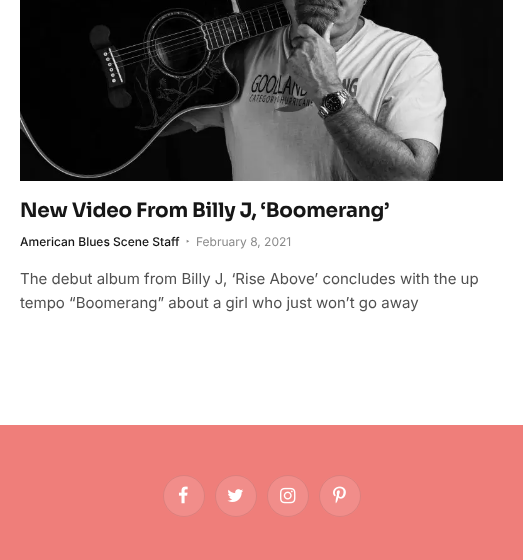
async function draw(canvas) {
	canvas.width = 523;
	canvas.height = 560;
	const c = canvas.getContext('2d');
	c.miterLimit = 4;
	c.fontKerning = 'normal';
	async function loadImage(src) {
		const img = new Image();
		img.src = src;
		await img.decode();
		return img;
	}

	c.fillStyle = '#fff';
	c.fillRect(0, 0, 523, 560);
	c.drawImage(await loadImage('img1.png'), 20, 0, 483, 181);
	c.letterSpacing = '-0.2px';
	c.font = 'bold 20px Sora';
	c.fillStyle = '#161616';
	c.fillText('New Video From Billy J, ‘Boomerang’', 20, 217);
	c.letterSpacing = '0px';
	c.font = '500 12px Inter';
	c.fillText('American Blues Scene Staff', 20, 246);
	c.font = '10px Noto Sans';
	c.fillStyle = '#8a8a8a';
	c.fillText('‣', 186, 245);
	c.font = '12px Inter';
	c.fillText('February 8, 2021', 196, 246);
	c.font = '15px Inter';
	c.fillStyle = '#505050';
	c.fillText('The debut album from Billy J, ‘Rise Above’ concludes with the up', 20, 284);
	c.fillText('tempo “Boomerang” about a girl who just won’t go away', 20, 308);
	c.fillStyle = '#ef7e7a';
	c.fillRect(0, 425, 523, 135);
	c.fillStyle = '#f18d8a';
	c.beginPath();
	c.arc(184, 496, 21, 0, 2 * Math.PI);
	c.fill();
	c.beginPath();
	c.arc(184, 496, 20.5, 0, 2 * Math.PI);
	c.strokeStyle = '#00000017';
	c.stroke();
	c.drawImage(await loadImage('img2.png'), 178, 486, 10, 18);
	c.beginPath();
	c.arc(236, 496, 21, 0, 2 * Math.PI);
	c.fill();
	c.beginPath();
	c.arc(236, 496, 20.5, 0, 2 * Math.PI);
	c.stroke();
	c.drawImage(await loadImage('img3.png'), 227, 489, 17, 13);
	c.beginPath();
	c.arc(288, 496, 21, 0, 2 * Math.PI);
	c.fill();
	c.beginPath();
	c.arc(288, 496, 20.5, 0, 2 * Math.PI);
	c.stroke();
	c.drawImage(await loadImage('img4.png'), 280, 487, 16, 17);
	c.beginPath();
	c.arc(340, 496, 21, 0, 2 * Math.PI);
	c.fill();
	c.beginPath();
	c.arc(340, 496, 20.5, 0, 2 * Math.PI);
	c.stroke();
	c.drawImage(await loadImage('img5.png'), 333, 486, 13, 18);
}

draw(document.querySelector('canvas'));
